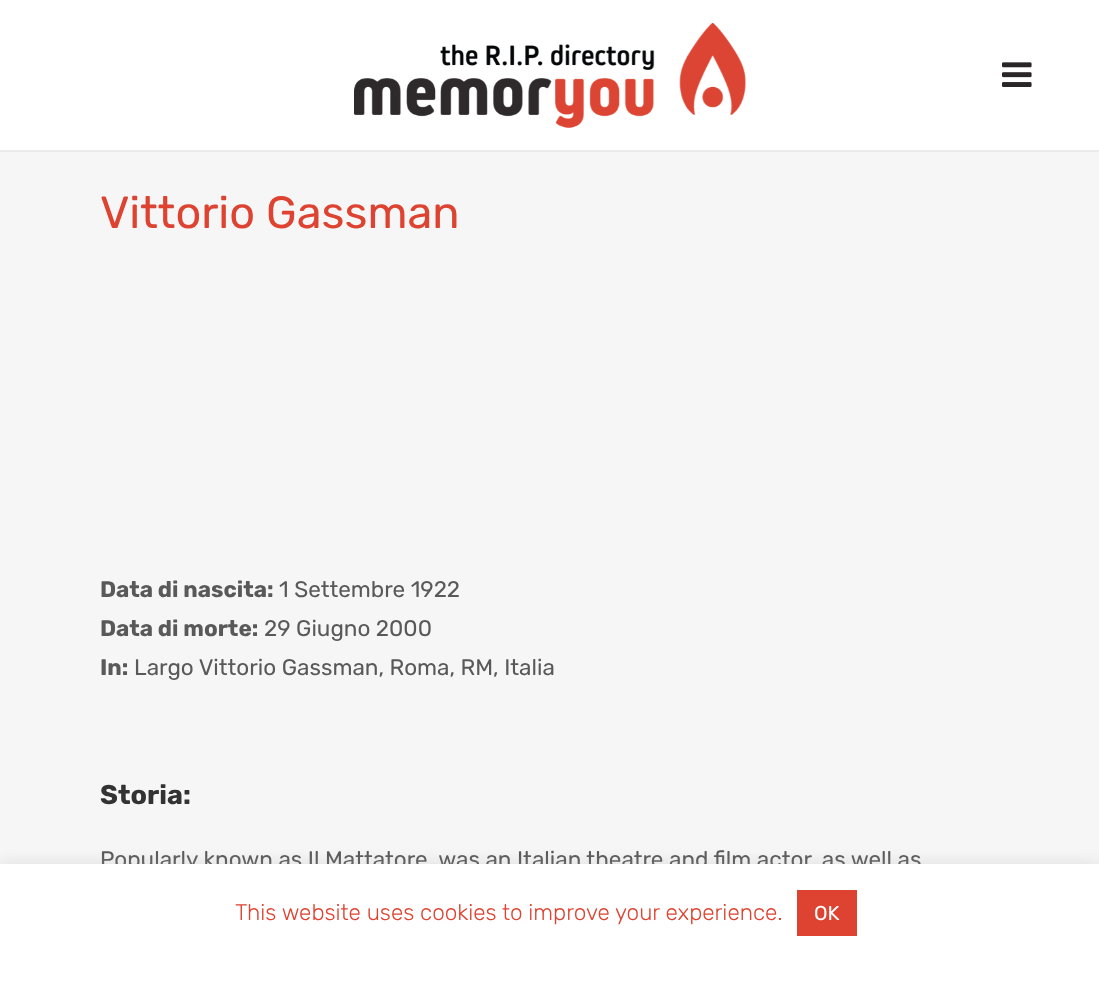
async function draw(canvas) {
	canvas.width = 1099;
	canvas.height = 988;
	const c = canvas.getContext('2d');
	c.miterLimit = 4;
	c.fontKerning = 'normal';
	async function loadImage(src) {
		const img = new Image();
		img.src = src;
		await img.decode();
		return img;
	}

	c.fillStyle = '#f6f6f6';
	c.fillRect(0, 0, 1099, 988);
	c.fillStyle = '#fff';
	c.fillRect(0, 0, 1099, 150);
	c.fillStyle = '#eaeaea';
	c.fillRect(0, 150, 1099, 2);
	c.drawImage(await loadImage('img1.png'), 354, 23, 392, 105);
	c.drawImage(await loadImage('img2.png'), 1002, 62, 30, 25);
	c.font = '45px Rubik';
	c.fillStyle = '#dd4330';
	c.fillText('Vittorio Gassman', 100, 228);
	c.font = 'bold 22.5px Rubik';
	c.fillStyle = '#595959';
	c.fillText('Data di nascita:', 100, 597);
	c.font = '22.5px Rubik';
	c.fillText('1 Settembre 1922', 279, 597);
	c.font = 'bold 22.5px Rubik';
	c.fillText('Data di morte:', 100, 636);
	c.font = '22.5px Rubik';
	c.fillText('29 Giugno 2000', 264, 636);
	c.font = 'bold 22.5px Rubik';
	c.fillText('In:', 100, 675);
	c.font = '22.5px Rubik';
	c.fillText('Largo Vittorio Gassman, Roma, RM, Italia', 134, 675);
	c.font = 'bold 27px Rubik';
	c.fillStyle = '#333';
	c.fillText('Storia:', 100, 804);
	c.font = '22.5px Rubik';
	c.fillStyle = '#595959';
	c.fillText('Popularly known as Il Mattatore, was an Italian theatre and film actor, as well as', 100, 867);
	c.fillStyle = '#acabab4d';
	c.filter = 'blur(7.5px)';
	c.beginPath();
	c.rect(0, 863, 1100, 124);
	c.fill();
	c.filter = 'none';
	c.fillStyle = '#fff';
	c.fillRect(0, 864, 1099, 124);
	c.font = '300 22.5px Rubik';
	c.fillStyle = '#dd4330';
	c.fillText('This website uses cookies to improve your experience.', 235, 920);
	c.fillRect(797, 890, 60, 46);
	c.font = '20px Rubik';
	c.fillStyle = '#fff';
	c.fillText('OK', 814, 920);
}

draw(document.querySelector('canvas'));
